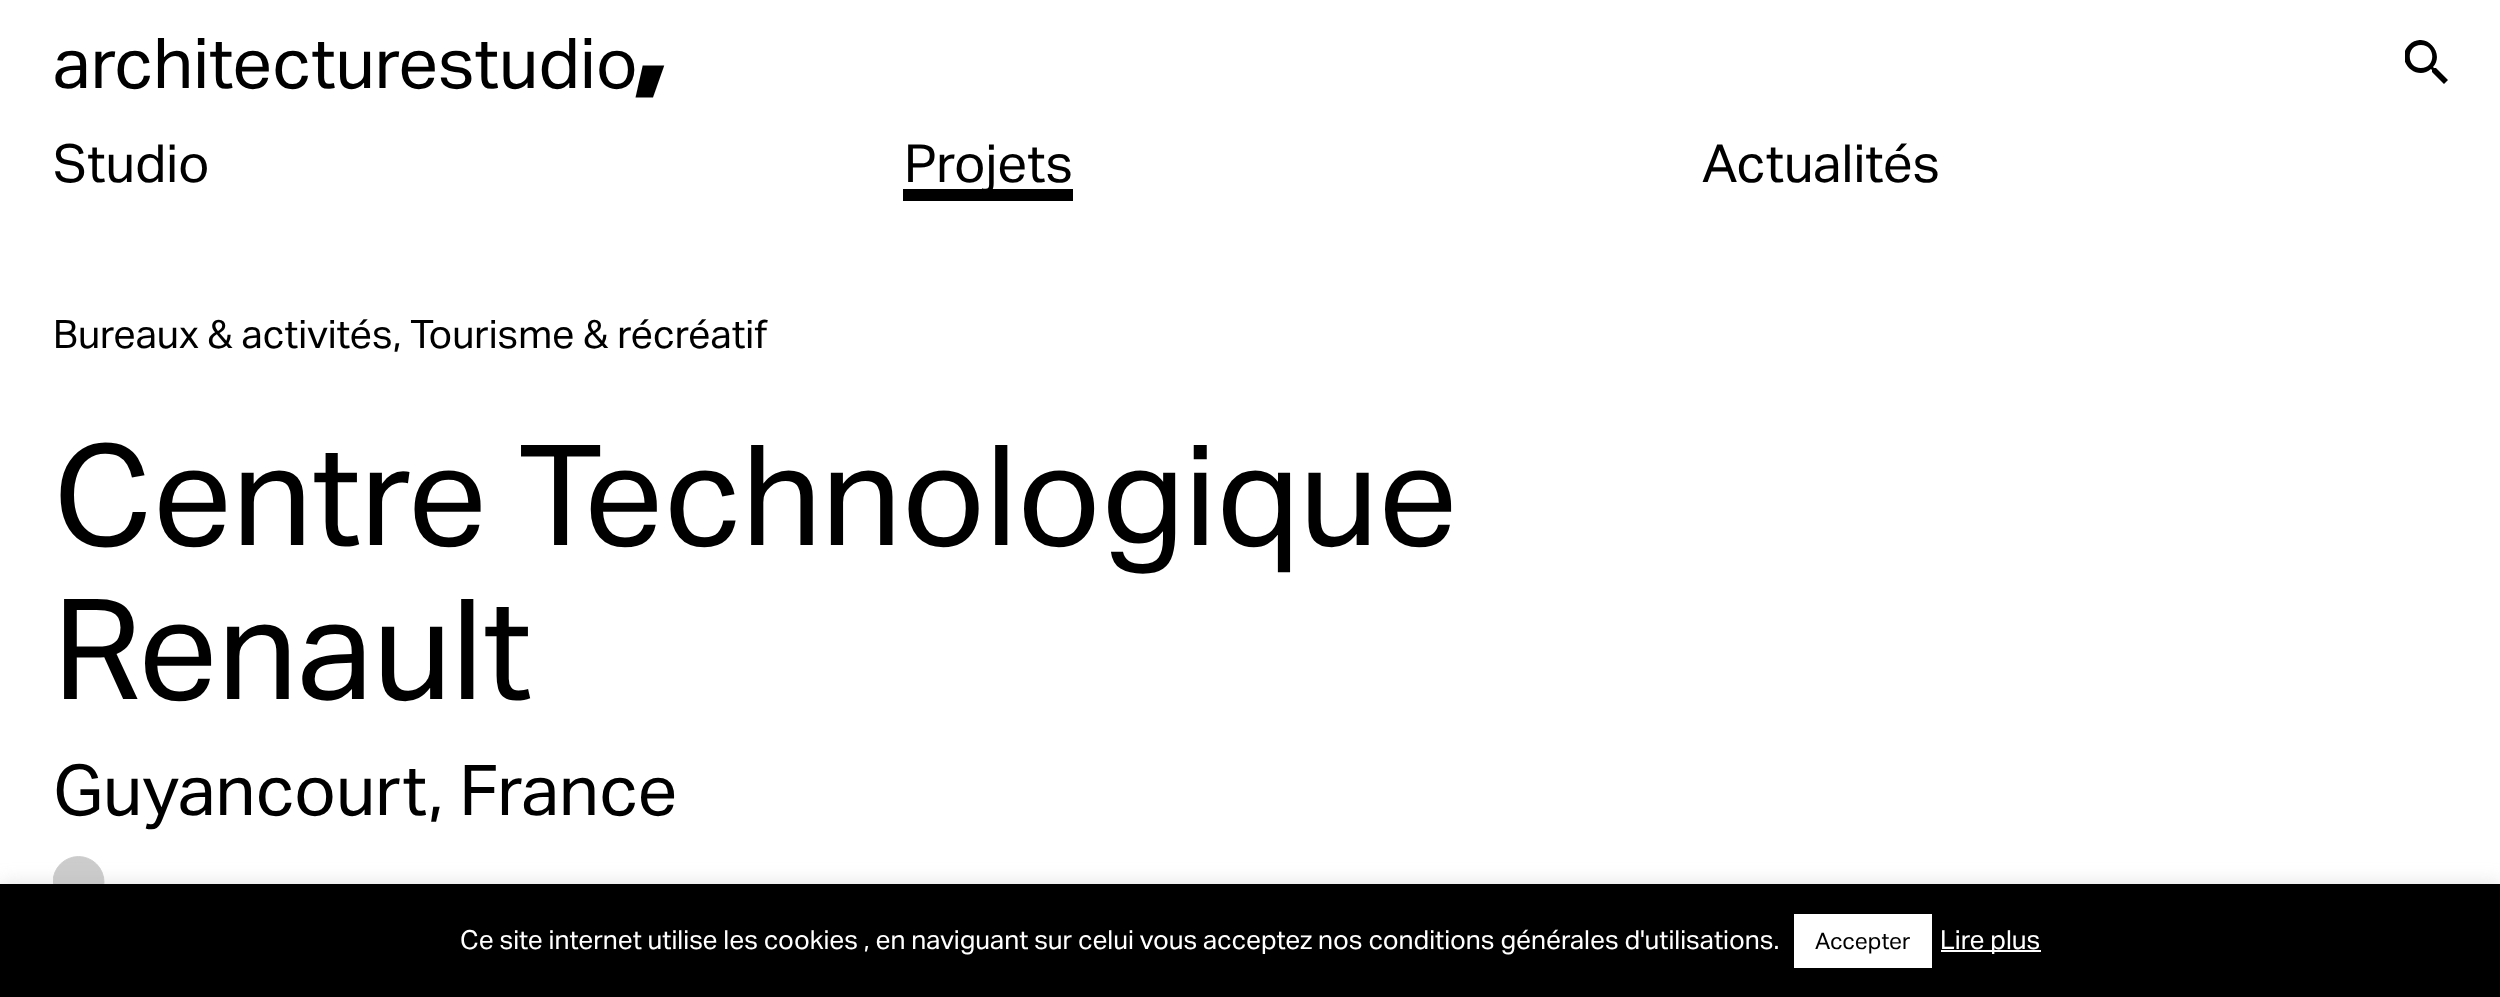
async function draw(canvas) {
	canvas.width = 2500;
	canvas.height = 997;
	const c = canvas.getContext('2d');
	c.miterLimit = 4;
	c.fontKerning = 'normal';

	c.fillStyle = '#fff';
	c.fillRect(0, 0, 2500, 997);
	c.font = '70px "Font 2"';
	c.fillStyle = '#000';
	c.fillText('architecturestudio,', 53, 88);
	c.save();
	c.beginPath();
	c.rect(2405, 40, 43, 44);
	c.clip();
	c.beginPath();
	c.moveTo(2436, 68);
	c.lineTo(2434, 68);
	c.lineTo(2433, 67);
	c.bezierCurveTo(2446, 52, 2424, 30, 2409, 45);
	c.bezierCurveTo(2394, 60, 2416, 82, 2431, 69);
	c.lineTo(2432, 70);
	c.lineTo(2432, 72);
	c.lineTo(2444, 84);
	c.lineTo(2448, 80);
	c.closePath();
	c.moveTo(2421, 68);
	c.bezierCurveTo(2406, 68, 2406, 45, 2421, 45);
	c.bezierCurveTo(2436, 45, 2436, 68, 2421, 68);
	c.closePath();
	c.fill();
	c.restore();
	c.font = '52.5px "Font 2"';
	c.fillText('Studio', 53, 182);
	c.fillText('Projets', 904, 182);
	c.fillRect(903, 189, 170, 12);
	c.fillText('Actualités', 1702, 182);
	c.font = '39.4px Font';
	c.fillText('Bureaux & activités, Tourisme & récréatif', 53, 348);
	c.font = '140px Font';
	c.fillText('Centre Technologique', 53, 545);
	c.fillText('Renault', 53, 699);
	c.font = '70px Font';
	c.fillText('Guyancourt, France', 53, 815);
	c.fillStyle = '#ccc';
	c.beginPath();
	c.arc(78.5, 882, 25.5, 0, 2 * Math.PI);
	c.fill();
	c.save();
	c.beginPath();
	c.rect(53, 856, 52, 52);
	c.clip();
	c.beginPath();
	c.arc(78.5, 882, 25.5, 0, 2 * Math.PI);
	c.strokeStyle = '#ccc';
	c.lineWidth = 0.9;
	c.stroke();
	c.restore();
	c.fillStyle = '#acabab4d';
	c.filter = 'blur(9px)';
	c.beginPath();
	c.rect(0, 882, 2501, 114);
	c.fill();
	c.filter = 'none';
	c.fillStyle = '#000';
	c.fillRect(0, 884, 2500, 113);
	c.font = '26.25px Font';
	c.fillStyle = '#fff';
	c.fillText('Ce site internet utilise les cookies , en naviguant sur celui vous acceptez nos conditions générales d\'utilisations.', 460, 949);
	c.fillRect(1794, 914, 138, 54);
	c.font = '22.75px Font';
	c.fillStyle = '#000';
	c.fillText('Accepter', 1815, 949);
	c.fillStyle = '#fff';
	c.fillRect(1941, 950, 100, 2);
	c.font = '26.25px Font';
	c.fillText('Lire plus', 1940, 949);
}

draw(document.querySelector('canvas'));
